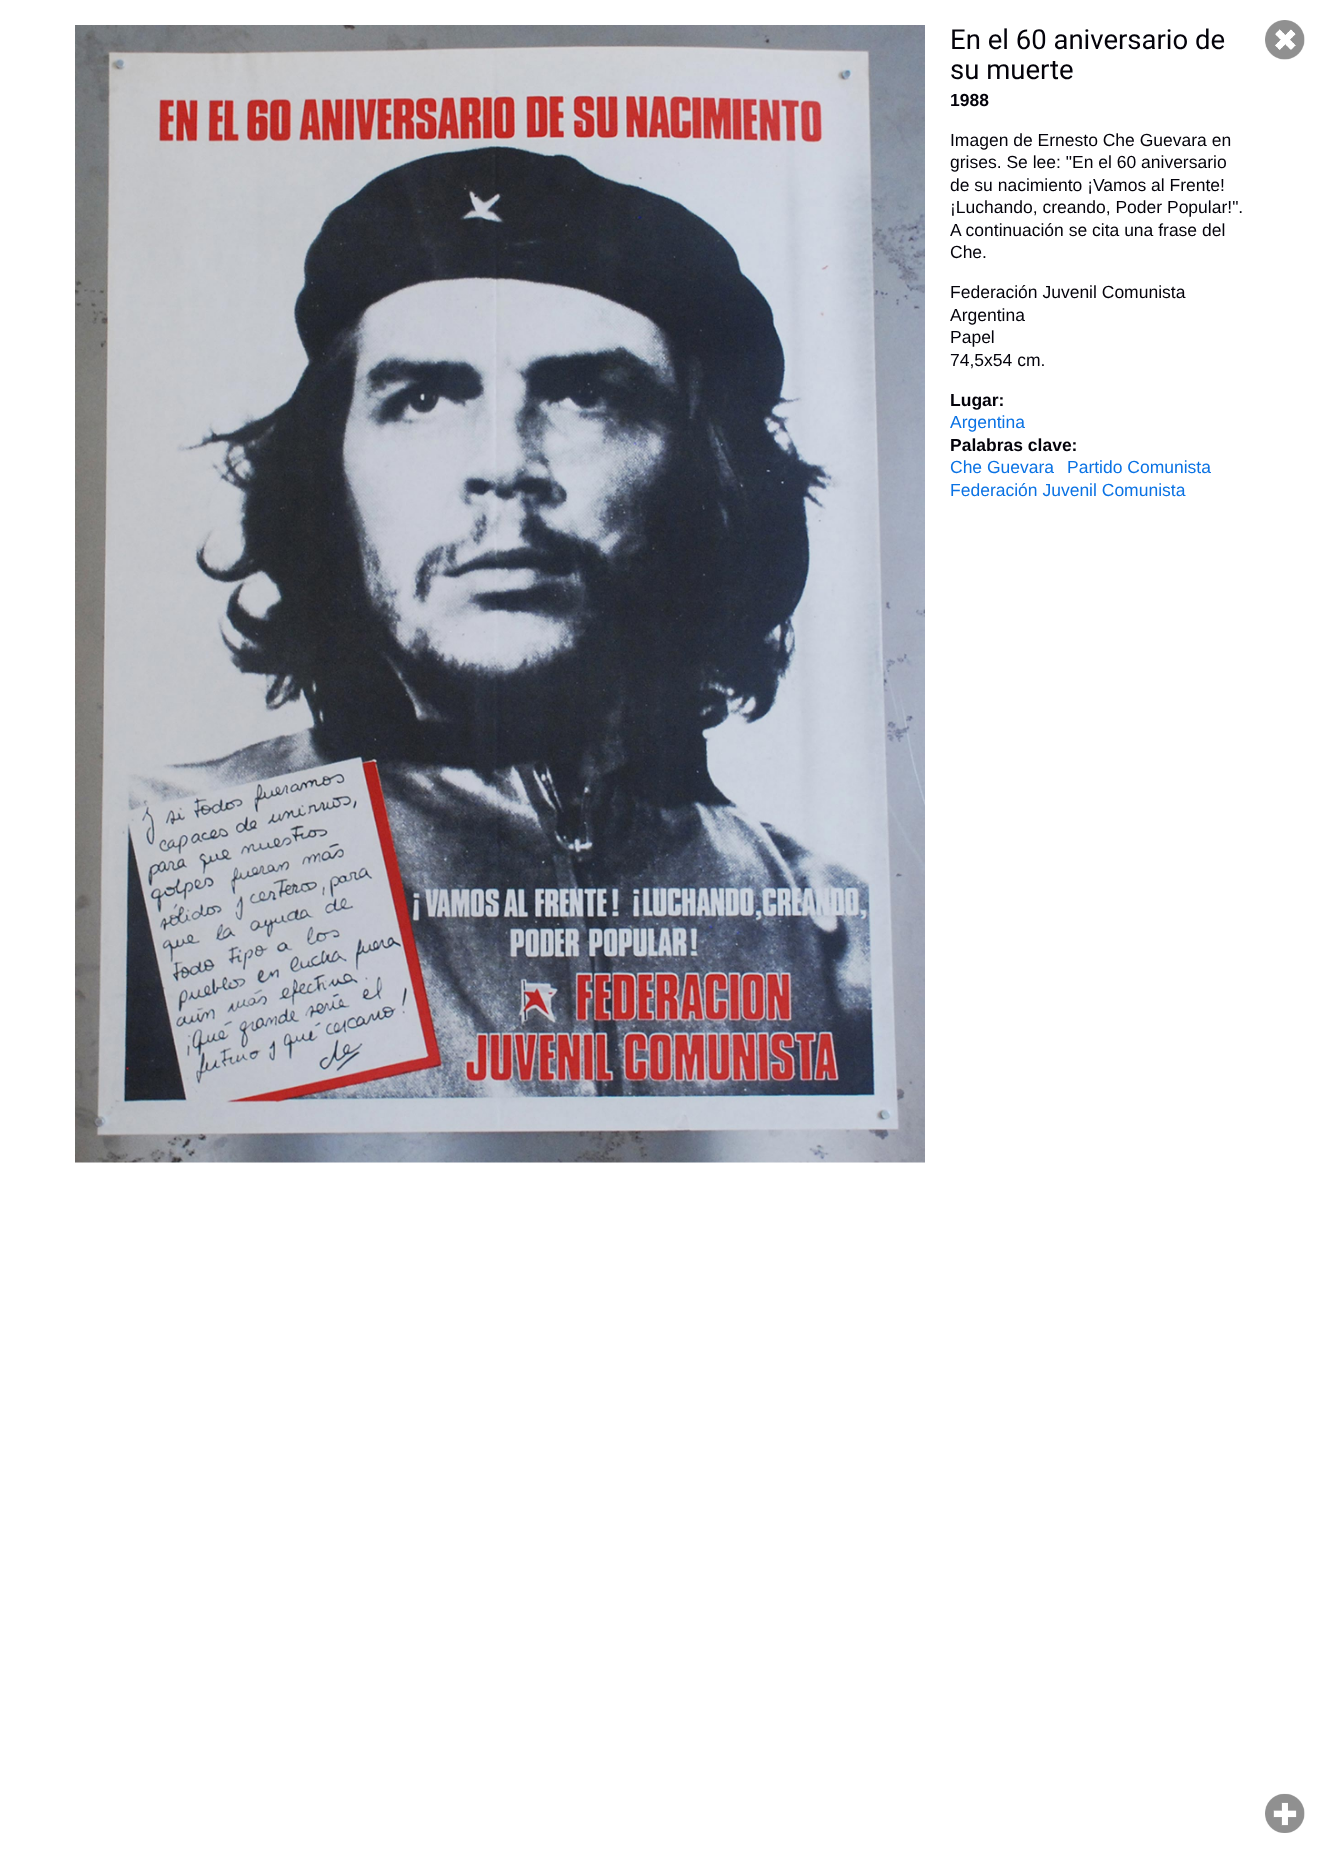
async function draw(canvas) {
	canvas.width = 1324;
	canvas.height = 1853;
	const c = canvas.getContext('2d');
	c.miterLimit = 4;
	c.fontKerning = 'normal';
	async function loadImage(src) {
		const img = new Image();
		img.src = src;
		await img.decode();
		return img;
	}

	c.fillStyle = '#fff';
	c.fillRect(0, 0, 1324, 1853);
	c.drawImage(await loadImage('img1.png'), 75, 25, 850, 1138);
	c.font = '27.5px Roboto';
	c.fillStyle = '#03020a';
	c.fillText('En el 60 aniversario de', 950, 49);
	c.fillText('su muerte', 950, 79);
	c.font = 'bold 17.5px Liberation Sans';
	c.fillText('1988', 950, 106);
	c.font = '17.5px Liberation Sans';
	for (const [text, x, y] of [
		['Imagen de Ernesto Che Guevara en', 950, 146],
		['grises. Se lee: "En el 60 aniversario', 950, 168],
		['de su nacimiento ¡Vamos al Frente!', 950, 191],
		['¡Luchando, creando, Poder Popular!".', 950, 213],
		['A continuación se cita una frase del', 950, 236],
		['Che.', 950, 258],
		['Federación Juvenil Comunista', 950, 298],
		['Argentina', 950, 321],
		['Papel', 950, 343],
		['74,5x54 cm.', 950, 366],
	]) {
		c.fillText(text, x, y);
	}
	c.font = 'bold 17.5px Liberation Sans';
	c.fillText('Lugar:', 950, 406);
	c.font = '17.5px Liberation Sans';
	c.fillStyle = '#0a72e4';
	c.fillText('Argentina', 950, 428);
	c.font = 'bold 17.5px Liberation Sans';
	c.fillStyle = '#03020a';
	c.fillText('Palabras clave:', 950, 451);
	c.font = '17.5px Liberation Sans';
	c.fillStyle = '#0a72e4';
	for (const [text, x, y] of [
		['Che Guevara', 950, 473],
		['Partido Comunista', 1067, 473],
		['Federación Juvenil Comunista', 950, 496],
	]) {
		c.fillText(text, x, y);
	}
	c.drawImage(await loadImage('img2.png'), 1265, 20, 40, 40);
	c.drawImage(await loadImage('img3.png'), 1265, 1793, 40, 40);
}

draw(document.querySelector('canvas'));
